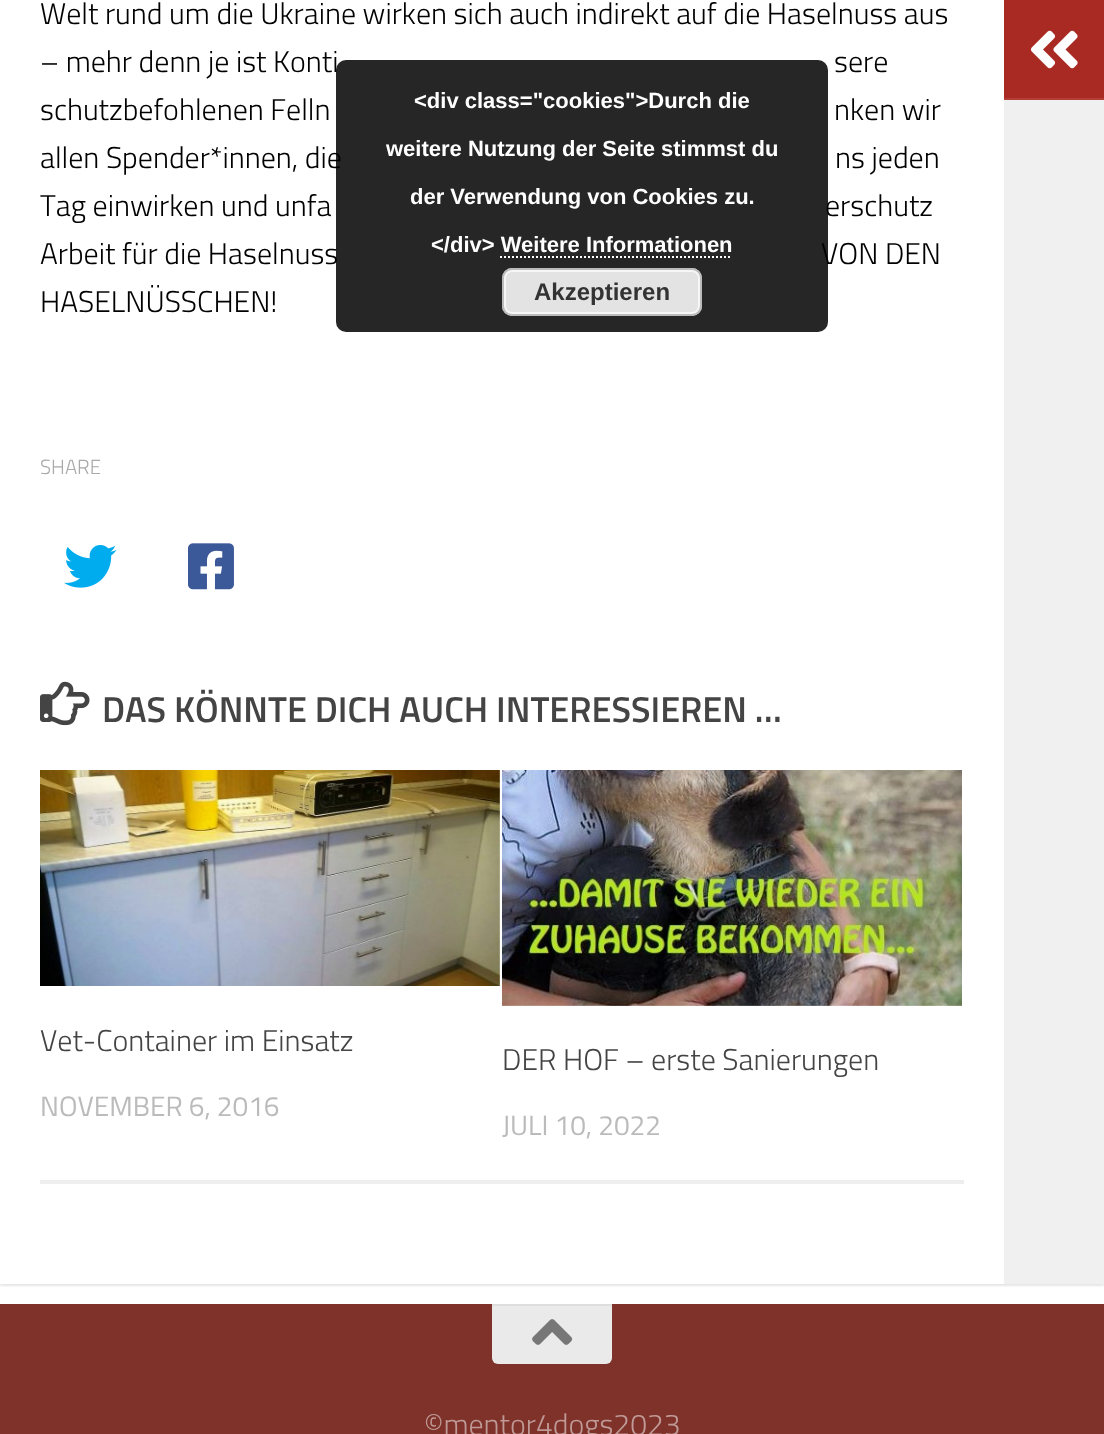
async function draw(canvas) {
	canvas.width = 1104;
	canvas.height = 1434;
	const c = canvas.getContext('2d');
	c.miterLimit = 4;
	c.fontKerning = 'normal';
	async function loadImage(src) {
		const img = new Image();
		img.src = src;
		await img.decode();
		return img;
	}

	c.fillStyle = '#fff';
	c.fillRect(0, 0, 1104, 1434);
	c.save();
	c.beginPath();
	c.rect(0, 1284, 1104, 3);
	c.clip();
	c.fillStyle = '#0000001a';
	c.filter = 'blur(1px)';
	c.beginPath();
	c.rect(0, -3, 1104, 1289);
	c.fill();
	c.filter = 'none';
	c.restore();
	c.font = '300 30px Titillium';
	c.fillStyle = '#000';
	for (const [text, x, y] of [
		['Welt rund um die Ukraine wirken sich auch indirekt auf die Haselnuss aus', 40, 24],
		['– mehr denn je ist Konti', 40, 72],
		['sere', 834, 72],
		['schutzbefohlenen Felln', 40, 120],
		['nken wir', 834, 120],
		['allen Spender*innen, die', 40, 168],
		['ns jeden', 835, 168],
		['Tag einwirken und unfa', 40, 216],
		['erschutz', 825, 216],
		['Arbeit für die Haselnuss', 40, 264],
		['VON DEN', 821, 264],
		['HASELNÜSSCHEN!', 40, 312],
	]) {
		c.fillText(text, x, y);
	}
	c.font = '300 20.5px Titillium';
	c.fillStyle = '#aaa';
	c.fillText('SHARE', 40, 474);
	c.drawImage(await loadImage('img1.png'), 64, 545, 53, 43);
	c.drawImage(await loadImage('img2.png'), 188, 543, 46, 47);
	c.drawImage(await loadImage('img3.png'), 40, 681, 50, 45);
	c.font = '600 36px Titillium';
	c.fillStyle = '#444';
	c.fillText('DAS KÖNNTE DICH AUCH INTERESSIEREN …', 102, 722);
	c.fillStyle = '#eee';
	c.fillRect(40, 1180, 924, 4);
	c.drawImage(await loadImage('img4.png'), 40, 770, 460, 216);
	c.font = '300 30px Titillium';
	c.fillStyle = '#444';
	c.fillText('Vet-Container im Einsatz', 40, 1051);
	c.font = '28px Titillium';
	c.fillStyle = '#bbb';
	c.fillText('NOVEMBER 6, 2016', 40, 1116);
	c.drawImage(await loadImage('img5.png'), 502, 770, 460, 236);
	c.font = '300 30px Titillium';
	c.fillStyle = '#444';
	c.fillText('DER HOF – erste Sanierungen', 502, 1070);
	c.font = '28px Titillium';
	c.fillStyle = '#bbb';
	c.fillText('JULI 10, 2022', 502, 1135);
	c.fillStyle = '#a92a22';
	c.fillRect(1004, 0, 100, 98);
	c.fillStyle = '#b23f38';
	c.fillRect(1004, 98, 100, 2);
	c.drawImage(await loadImage('img6.png'), 1030, 30, 48, 39);
	c.fillStyle = '#f0f0f0';
	c.fillRect(1004, 100, 100, 1184);
	c.fillStyle = '#7f322a';
	c.fillRect(0, 1304, 1104, 130);
	c.fillStyle = '#eaeaea';
	c.beginPath();
	c.roundRect(492, 1304, 120, 60, [0, 0, 6, 6]);
	c.fill();
	c.fillStyle = '#dedede';
	c.fillRect(492, 1304, 120, 2);
	c.drawImage(await loadImage('img7.png'), 532, 1319, 41, 26);
	c.font = '300 30px Titillium';
	c.fillStyle = '#bf9995';
	c.fillText('©mentor4dogs2023', 424, 1435);
	c.fillStyle = '#000000d9';
	c.beginPath();
	c.roundRect(336, 60, 492, 272, 10);
	c.fill();
	c.font = 'bold 22px Liberation Sans';
	c.fillStyle = '#fff';
	for (const [text, x, y] of [
		['<div class="cookies">Durch die', 414, 108],
		['weitere Nutzung der Seite stimmst du', 386, 156],
		['der Verwendung von Cookies zu.', 410, 204],
		['<\/div> Weitere Informationen', 431, 252],
	]) {
		c.fillText(text, x, y);
	}
	c.beginPath();
	c.moveTo(500, 257);
	c.lineTo(732, 257);
	c.strokeStyle = '#fff';
	c.lineWidth = 2;
	c.setLineDash([2, 2]);
	c.stroke();
	c.fillStyle = '#e3e3e3';
	c.beginPath();
	c.roundRect(502, 268, 200, 48, 10);
	c.fill();
	c.beginPath();
	c.roundRect(505, 271, 194, 42, 7);
	c.strokeStyle = '#f6f6f6';
	c.setLineDash([]);
	c.stroke();
	c.beginPath();
	c.roundRect(503, 269, 198, 46, 9);
	c.strokeStyle = '#bbb';
	c.stroke();
	c.font = 'bold 24px Liberation Sans';
	c.fillStyle = '#333';
	c.fillText('Akzeptieren', 534, 300);
}

draw(document.querySelector('canvas'));
